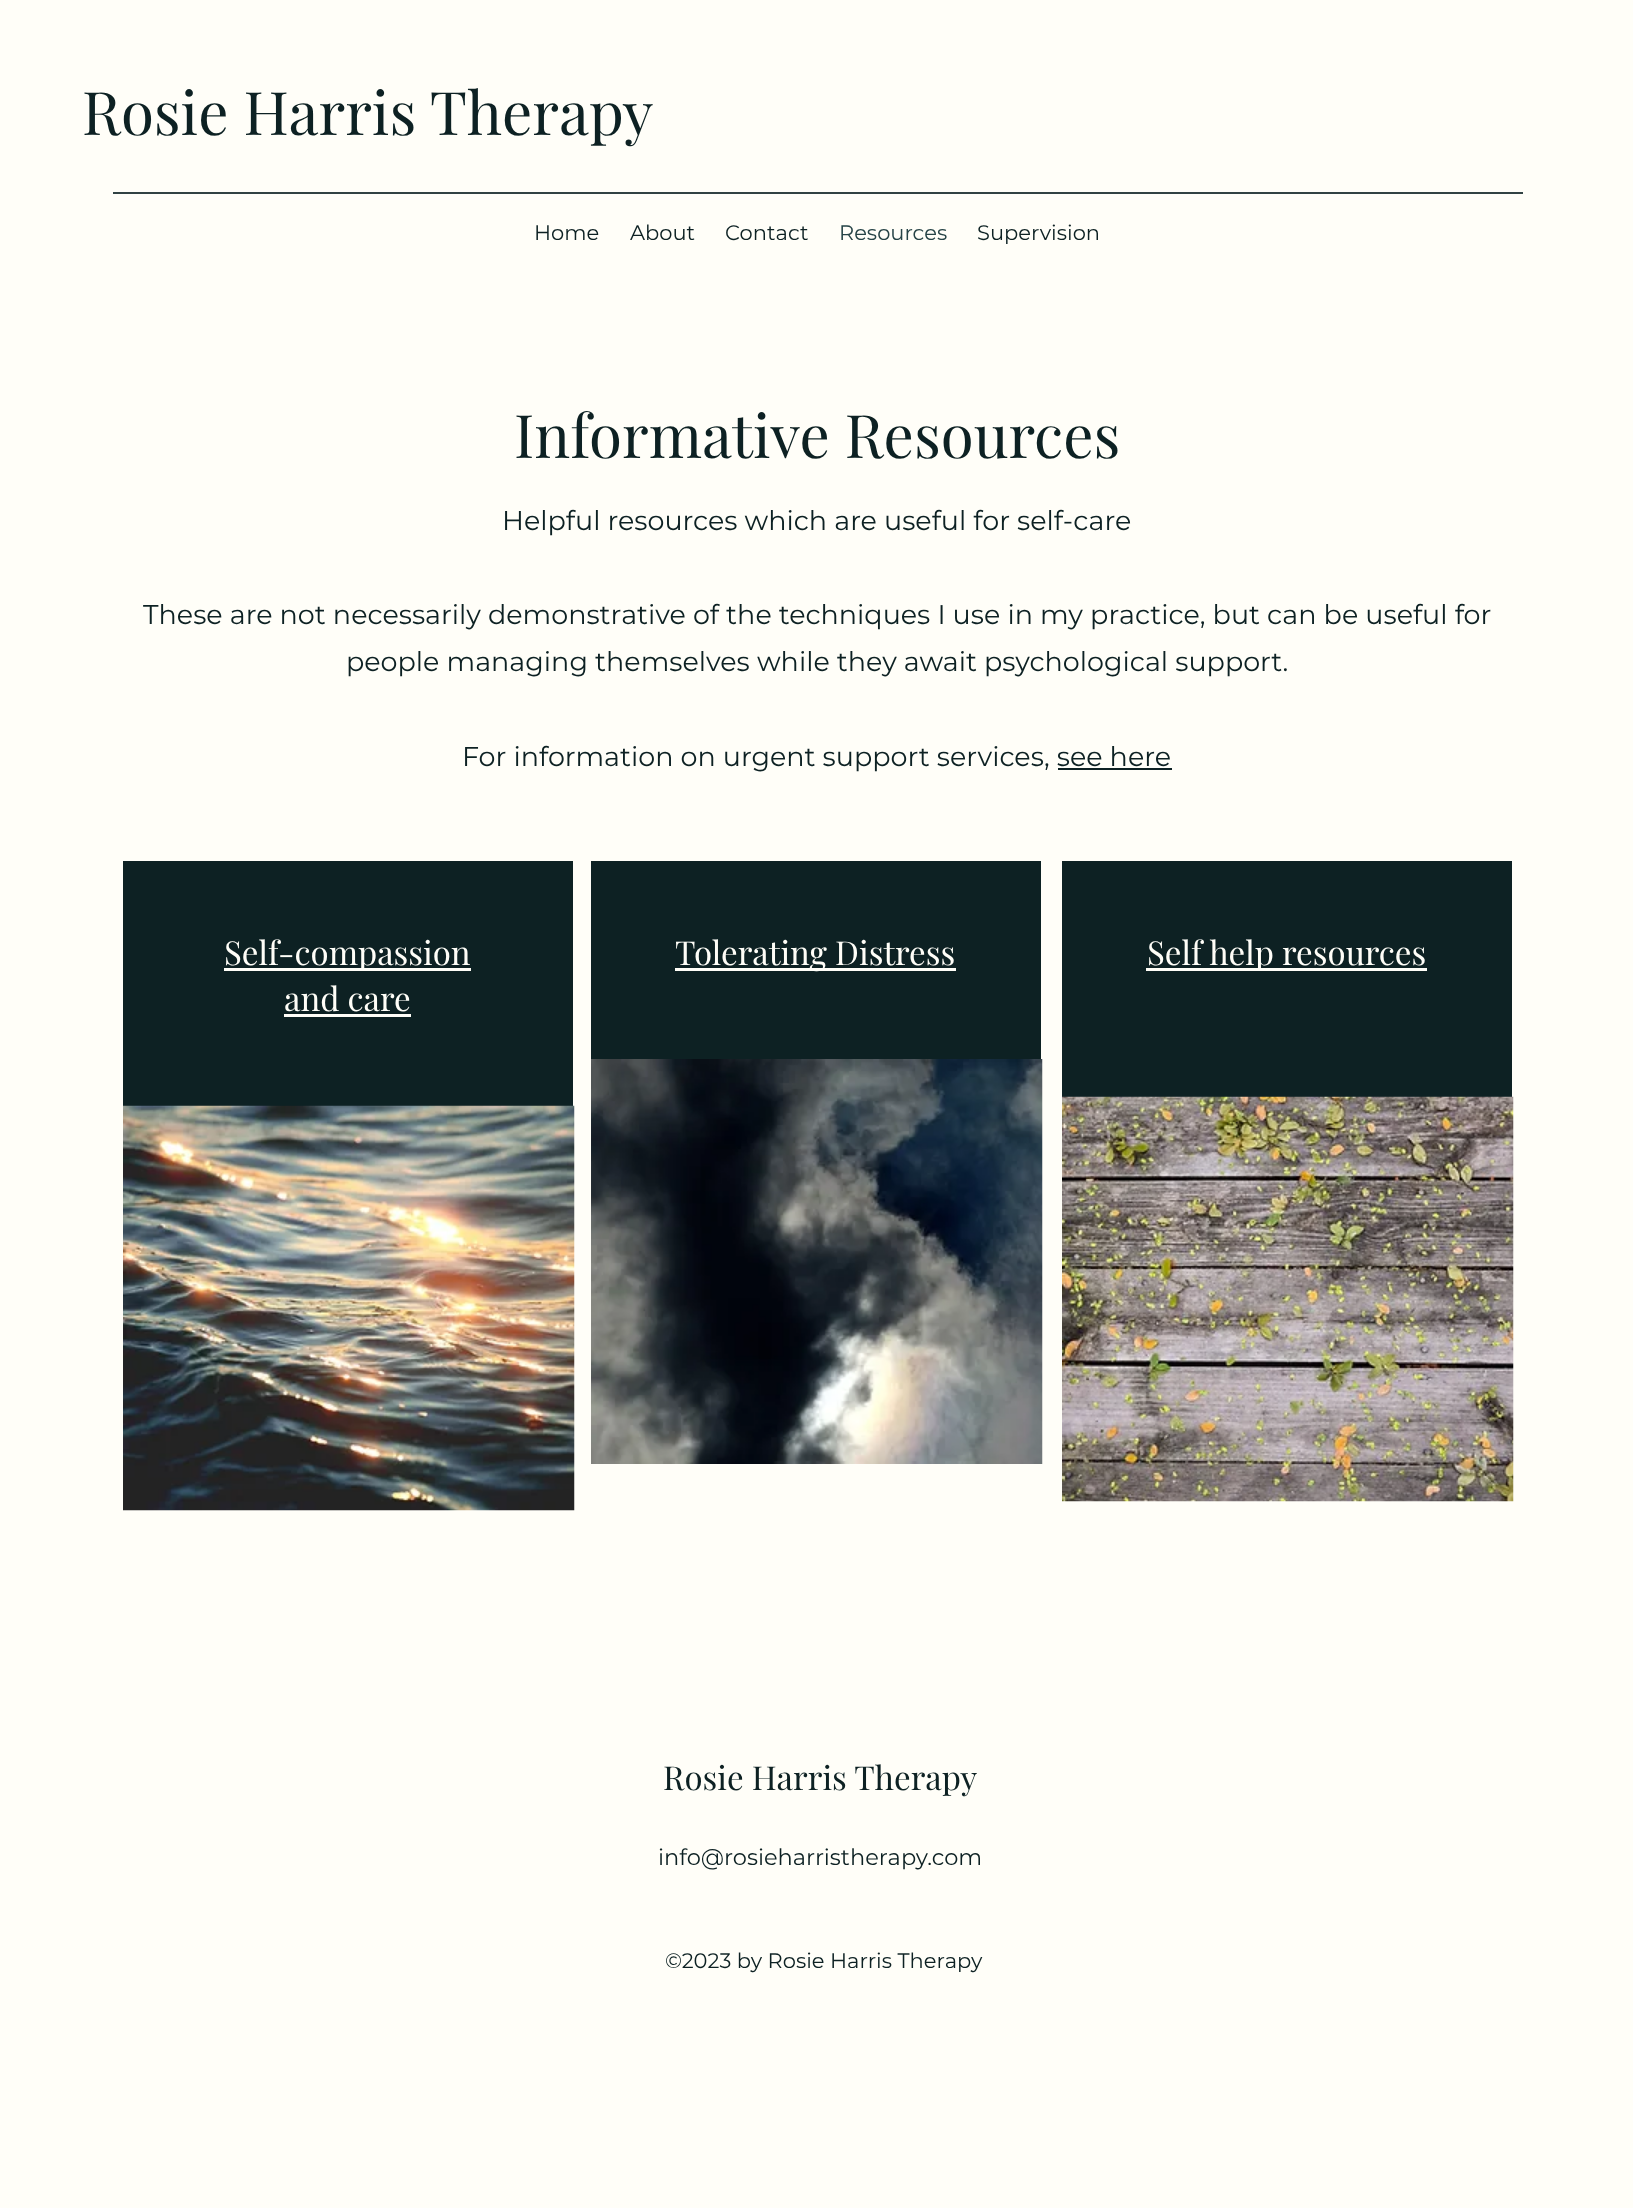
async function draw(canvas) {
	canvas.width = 1633;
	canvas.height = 2208;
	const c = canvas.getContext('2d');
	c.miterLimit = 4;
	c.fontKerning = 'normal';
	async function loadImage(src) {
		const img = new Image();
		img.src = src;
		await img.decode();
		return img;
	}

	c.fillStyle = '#fffef8';
	c.fillRect(0, 0, 1633, 2208);
	c.font = '60px Playfair Display';
	c.fillStyle = '#0d2123';
	c.fillText('Rosie Harris Therapy', 82, 135);
	c.fillStyle = '#314243';
	c.fillRect(113, 192, 1410, 2);
	c.font = '21px Montserrat';
	c.fillStyle = '#0d2123';
	for (const [text, x, y] of [
		['Home', 534, 240],
		['About', 630, 240],
		['Contact', 725, 240],
	]) {
		c.fillText(text, x, y);
	}
	c.fillStyle = '#264346';
	c.fillText('Resources', 839, 240);
	c.fillStyle = '#0d2123';
	c.fillText('Supervision', 977, 240);
	c.font = '60px Playfair Display';
	c.fillText('Informative Resources', 514, 458);
	c.font = '27px Montserrat';
	for (const [text, x, y] of [
		['Helpful resources which are useful for self-care', 502, 530],
		['These are not necessarily demonstrative of the techniques I use in my practice, but can be useful for', 143, 624],
		['people managing themselves while they await psychological support.', 346, 671],
		['For information on urgent support services, see here', 462, 766],
	]) {
		c.fillText(text, x, y);
	}
	for (const [x, y, w, h, color] of [
		[1058, 768, 114, 2, '#0d2123'],
		[123, 861, 450, 245, '#0d2123'],
		[224, 968, 247, 3, '#fffef8'],
	]) {
		c.fillStyle = color;
		c.fillRect(x, y, w, h);
	}
	c.font = '33px Playfair Display';
	c.fillText('Self-compassion', 224, 965);
	c.fillText('and care', 284, 1011);
	c.fillRect(284, 1014, 127, 3);
	c.drawImage(await loadImage('img1.png'), 123, 1105, 452, 406);
	c.fillStyle = '#0d2123';
	c.fillRect(591, 861, 450, 198);
	c.fillStyle = '#fffef8';
	c.fillRect(675, 968, 281, 3);
	c.fillText('Tolerating Distress', 675, 965);
	c.drawImage(await loadImage('img2.png'), 591, 1059, 452, 405);
	c.fillStyle = '#0d2123';
	c.fillRect(1062, 861, 450, 236);
	c.fillStyle = '#fffef8';
	c.fillRect(1146, 968, 281, 3);
	c.fillText('Self help resources', 1147, 965);
	c.drawImage(await loadImage('img3.png'), 1062, 1096, 452, 406);
	c.fillStyle = '#0d2123';
	c.fillText('Rosie Harris Therapy', 663, 1790);
	c.font = '22.5px Montserrat';
	c.fillText('info@rosieharristherapy.com', 658, 1865);
	c.font = '21px Montserrat';
	c.fillText('©2023 by Rosie Harris Therapy', 665, 1968);
}

draw(document.querySelector('canvas'));
